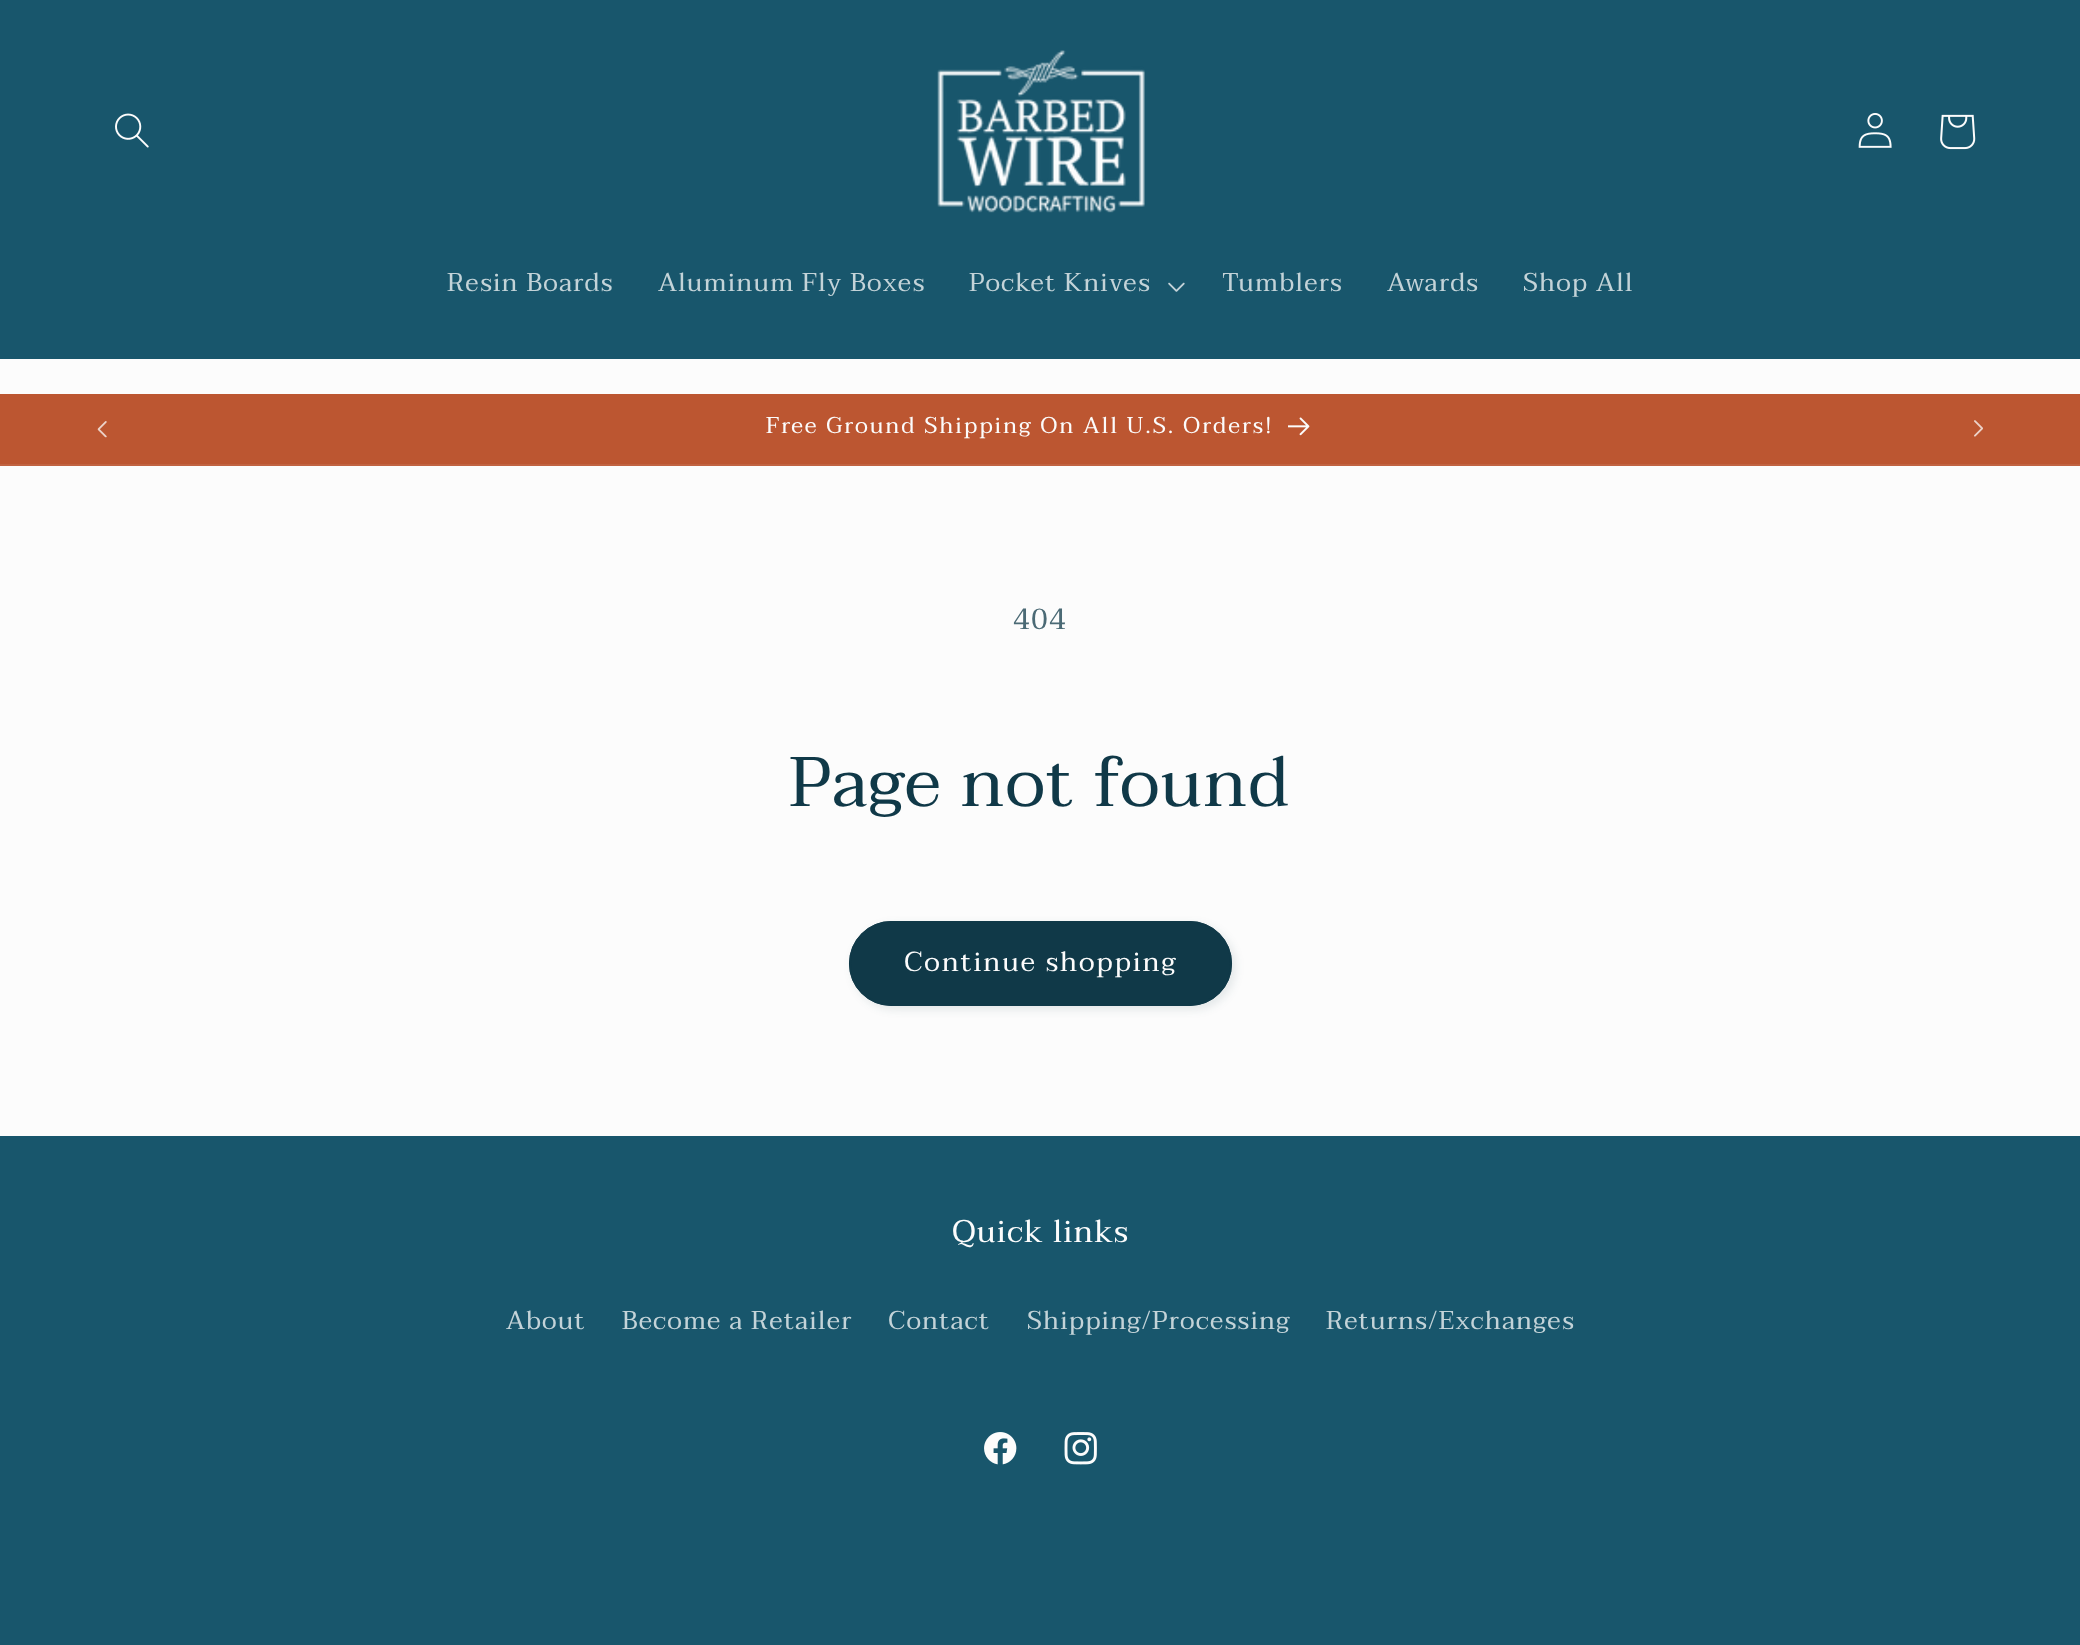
async function draw(canvas) {
	canvas.width = 2080;
	canvas.height = 1645;
	const c = canvas.getContext('2d');
	c.miterLimit = 4;
	c.fontKerning = 'normal';
	async function loadImage(src) {
		const img = new Image();
		img.src = src;
		await img.decode();
		return img;
	}

	c.fillStyle = '#fcfcfc';
	c.fillRect(0, 0, 2080, 1645);
	c.fillStyle = '#18566c';
	c.fillRect(0, 0, 2080, 359);
	c.drawImage(await loadImage('img1.png'), 115, 113, 34, 35);
	c.drawImage(await loadImage('img2.png'), 937, 50, 208, 163);
	c.drawImage(await loadImage('img3.png'), 1858, 113, 34, 35);
	c.drawImage(await loadImage('img4.png'), 1940, 114, 36, 36);
	c.letterSpacing = '1.1px';
	c.font = '25.75px Taviraj';
	c.fillStyle = '#c3d3d8';
	for (const [text, x, y] of [
		['Resin Boards', 447, 291],
		['Aluminum Fly Boxes', 658, 291],
		['Pocket Knives', 969, 291],
	]) {
		c.fillText(text, x, y);
	}
	c.drawImage(await loadImage('img5.png'), 1168, 282, 17, 10);
	for (const [text, x, y] of [
		['Tumblers', 1222, 291],
		['Awards', 1387, 291],
		['Shop All', 1523, 291],
	]) {
		c.fillText(text, x, y);
	}
	c.fillStyle = '#bc5631';
	c.fillRect(0, 394, 2080, 70);
	c.fillStyle = '#c16341';
	c.fillRect(0, 464, 2080, 2);
	c.drawImage(await loadImage('img6.png'), 97, 421, 10, 17);
	c.letterSpacing = '1.85px';
	c.font = '22.75px Taviraj';
	c.fillStyle = '#fcfcfc';
	c.fillText('Free Ground Shipping On All U.S. Orders!', 766, 433);
	c.drawImage(await loadImage('img7.png'), 1288, 417, 22, 19);
	c.drawImage(await loadImage('img8.png'), 1974, 420, 9, 17);
	c.letterSpacing = '1.1px';
	c.font = '29px Taviraj';
	c.fillStyle = '#4b6a75';
	c.fillText('404', 1013, 629);
	c.letterSpacing = '1px';
	c.font = '70px Taviraj';
	c.fillStyle = '#103948';
	c.fillText('Page not found', 789, 806);
	c.fillStyle = '#1039481a';
	c.filter = 'blur(4.5px)';
	c.beginPath();
	c.roundRect(852, 924, 384, 86, 43);
	c.fill();
	c.filter = 'none';
	c.fillStyle = '#103948';
	c.beginPath();
	c.roundRect(849, 921, 383, 85, 42.5);
	c.fill();
	c.beginPath();
	c.roundRect(850, 922, 381, 83, 41.5);
	c.strokeStyle = '#103948';
	c.lineWidth = 2;
	c.stroke();
	c.letterSpacing = '1.85px';
	c.font = '27.5px Taviraj';
	c.fillStyle = '#fcfcfc';
	c.fillText('Continue shopping', 904, 971);
	c.fillStyle = '#18566c';
	c.fillRect(0, 1136, 2080, 509);
	c.letterSpacing = '1px';
	c.font = '31.5px Taviraj';
	c.fillStyle = '#fcfcfc';
	c.fillText('Quick links', 952, 1242);
	c.letterSpacing = '1.1px';
	c.font = '25.75px Taviraj';
	c.fillStyle = '#c3d3d8';
	for (const [text, x, y] of [
		['About', 506, 1329],
		['Become a Retailer', 622, 1329],
		['Contact', 888, 1329],
		['Shipping/Processing', 1027, 1329],
		['Returns/Exchanges', 1326, 1329],
	]) {
		c.fillText(text, x, y);
	}
	c.drawImage(await loadImage('img9.png'), 984, 1432, 33, 33);
	c.drawImage(await loadImage('img10.png'), 1064, 1432, 33, 33);
}

draw(document.querySelector('canvas'));
